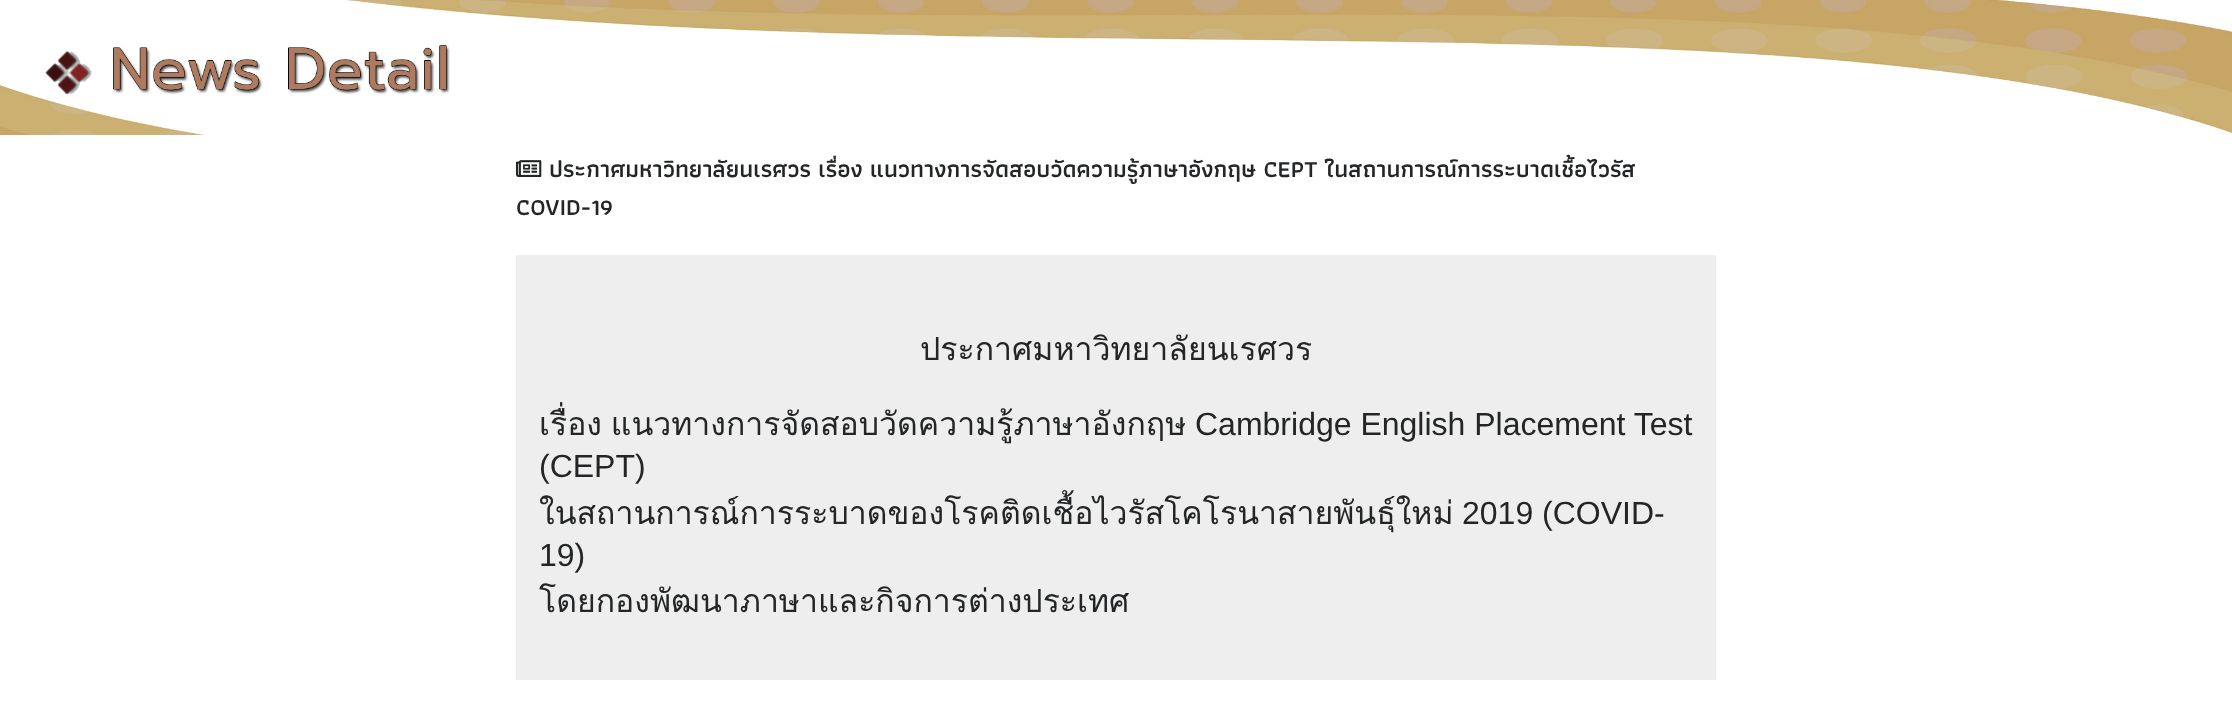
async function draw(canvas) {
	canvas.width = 2232;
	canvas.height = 703;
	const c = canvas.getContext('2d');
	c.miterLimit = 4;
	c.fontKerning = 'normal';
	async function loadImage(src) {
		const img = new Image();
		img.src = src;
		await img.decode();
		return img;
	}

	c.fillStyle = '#fff';
	c.fillRect(0, 0, 2232, 703);
	c.drawImage(await loadImage('img1.png'), 0, 0, 2232, 135);
	c.drawImage(await loadImage('img2.png'), 516, 160, 26, 17);
	c.font = '600 24px Athiti';
	c.fillStyle = '#232526';
	c.fillText('ประกาศมหาวิทยาลัยนเรศวร เรื่อง แนวทางการจัดสอบวัดความรู้ภาษาอังกฤษ CEPT ในสถานการณ์การระบาดเชื้อไวรัส', 549, 177);
	c.fillText('COVID-19', 516, 215);
	c.fillStyle = '#eee';
	c.fillRect(516, 255, 1200, 425);
	c.font = '32px Loma';
	c.fillStyle = '#232526';
	c.fillText('ประกาศมหาวิทยาลัยนเรศวร', 920, 360);
	c.wordSpacing = '-2px';
	c.fillText('เรื่อง แนวทางการจัดสอบวัดความรู้ภาษาอังกฤษ', 539, 435);
	c.wordSpacing = '0px';
	c.font = '32px Liberation Sans';
	c.fillText('Cambridge English Placement Test', 1195, 435);
	c.fillText('(CEPT)', 539, 477);
	c.font = '32px Loma';
	c.fillText('ในสถานการณ์การระบาดของโรคติดเชื้อไวรัสโคโรนาสายพันธุ์ใหม่', 539, 524);
	c.font = '32px Liberation Sans';
	c.fillText('2019 (COVID-', 1462, 524);
	c.fillText('19)', 539, 566);
	c.font = '32px Loma';
	c.fillText('โดยกองพัฒนาภาษาและกิจการต่างประเทศ', 539, 612);
}

draw(document.querySelector('canvas'));
